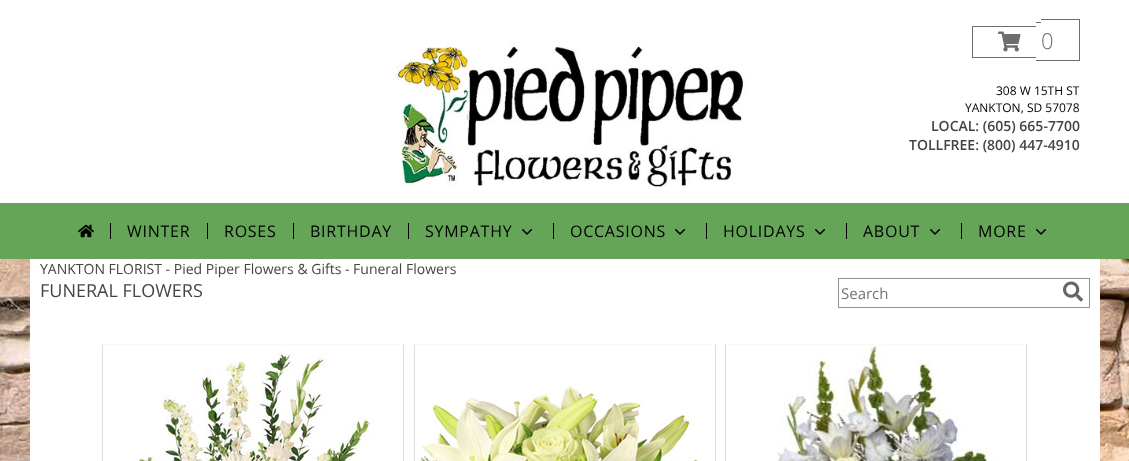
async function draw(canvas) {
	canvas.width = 1129;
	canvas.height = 461;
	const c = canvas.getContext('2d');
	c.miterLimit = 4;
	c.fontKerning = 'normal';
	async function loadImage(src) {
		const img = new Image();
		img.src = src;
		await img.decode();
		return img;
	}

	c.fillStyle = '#fff';
	c.fillRect(0, 0, 1129, 461);
	c.drawImage(await loadImage('img1.png'), 0, 259, 1129, 202);
	c.fillRect(30, 259, 1070, 202);
	c.drawImage(await loadImage('img2.png'), 395, 41, 352, 146);
	for (const [x, y, w, h, color] of [
		[972, 26, 64, 1, '#6e6e6e'],
		[972, 57, 64, 1, '#6e6e6e'],
		[972, 26, 1, 32, '#6e6e6e'],
		[1036, 22, 5, 1, '#6e6e6e'],
		[1036, 60, 5, 1, '#6e6e6e'],
		[1041, 19, 39, 1, '#6e6e6e'],
		[1079, 19, 1, 42, '#6e6e6e'],
		[1041, 60, 39, 1, '#6e6e6e'],
	]) {
		c.fillStyle = color;
		c.fillRect(x, y, w, h);
	}
	c.drawImage(await loadImage('img3.png'), 998, 31, 23, 21);
	c.font = '300 22px Open Sans';
	c.fillText('0', 1041, 49);
	c.font = '12px Open Sans';
	c.fillStyle = '#000';
	c.fillText('308 W 15TH ST', 996, 95);
	c.fillText('YANKTON, SD 57078', 965, 112);
	c.font = '600 14px Open Sans';
	c.fillStyle = '#444';
	c.fillText('LOCAL: (605) 665-7700', 931, 131);
	c.fillText('TOLLFREE: (800) 447-4910', 909, 150);
	c.fillStyle = '#65a557';
	c.fillRect(0, 203, 1129, 56);
	c.drawImage(await loadImage('img4.png'), 78, 224, 16, 14);
	c.fillStyle = '#000';
	c.fillRect(110, 223, 1, 16);
	c.letterSpacing = '0.75px';
	c.font = '16px Open Sans';
	c.fillText('WINTER', 127, 237);
	c.fillRect(207, 223, 1, 16);
	c.fillText('ROSES', 224, 237);
	c.fillRect(293, 223, 1, 16);
	c.fillText('BIRTHDAY', 310, 237);
	c.fillRect(408, 223, 1, 16);
	c.fillText('SYMPATHY', 425, 237);
	c.drawImage(await loadImage('img5.png'), 522, 229, 10, 6);
	c.fillRect(553, 223, 1, 16);
	c.fillText('OCCASIONS', 570, 237);
	c.drawImage(await loadImage('img5.png'), 675, 229, 10, 6);
	c.fillRect(706, 223, 1, 16);
	c.fillText('HOLIDAYS', 723, 237);
	c.drawImage(await loadImage('img5.png'), 815, 229, 10, 6);
	c.fillRect(846, 223, 1, 16);
	c.fillText('ABOUT', 863, 237);
	c.drawImage(await loadImage('img5.png'), 930, 229, 10, 6);
	c.fillRect(961, 223, 1, 16);
	c.fillText('MORE', 978, 237);
	c.drawImage(await loadImage('img5.png'), 1036, 229, 10, 6);
	c.letterSpacing = '0px';
	c.font = '14px Open Sans';
	c.fillStyle = '#444';
	c.fillText('YANKTON FLORIST - Pied Piper Flowers & Gifts - Funeral Flowers', 40, 274);
	c.font = '18px Open Sans';
	c.fillText('FUNERAL FLOWERS', 40, 297);
	c.strokeStyle = '#919191';
	c.strokeRect(838.5, 278.5, 251, 29);
	c.font = '15px Open Sans';
	c.fillStyle = '#757575';
	c.fillText('Search', 841, 299);
	c.drawImage(await loadImage('img6.png'), 1063, 281, 20, 21);
	for (const [x, y, w, h, color] of [
		[102, 344, 302, 1, '#f9f9f9'],
		[403, 344, 1, 117, '#e2dedd'],
		[102, 344, 1, 117, '#e2dedd'],
	]) {
		c.fillStyle = color;
		c.fillRect(x, y, w, h);
	}
	c.drawImage(await loadImage('img7.png'), 135, 351, 240, 110);
	for (const [x, y, w, h, color] of [
		[414, 344, 302, 1, '#f9f9f9'],
		[715, 344, 1, 117, '#e2dedd'],
		[414, 344, 1, 117, '#e2dedd'],
	]) {
		c.fillStyle = color;
		c.fillRect(x, y, w, h);
	}
	c.drawImage(await loadImage('img8.png'), 416, 385, 287, 76);
	for (const [x, y, w, h, color] of [
		[725, 344, 302, 1, '#f9f9f9'],
		[1026, 344, 1, 117, '#e2dedd'],
		[725, 344, 1, 117, '#e2dedd'],
	]) {
		c.fillStyle = color;
		c.fillRect(x, y, w, h);
	}
	c.drawImage(await loadImage('img9.png'), 774, 345, 223, 116);
}

draw(document.querySelector('canvas'));
